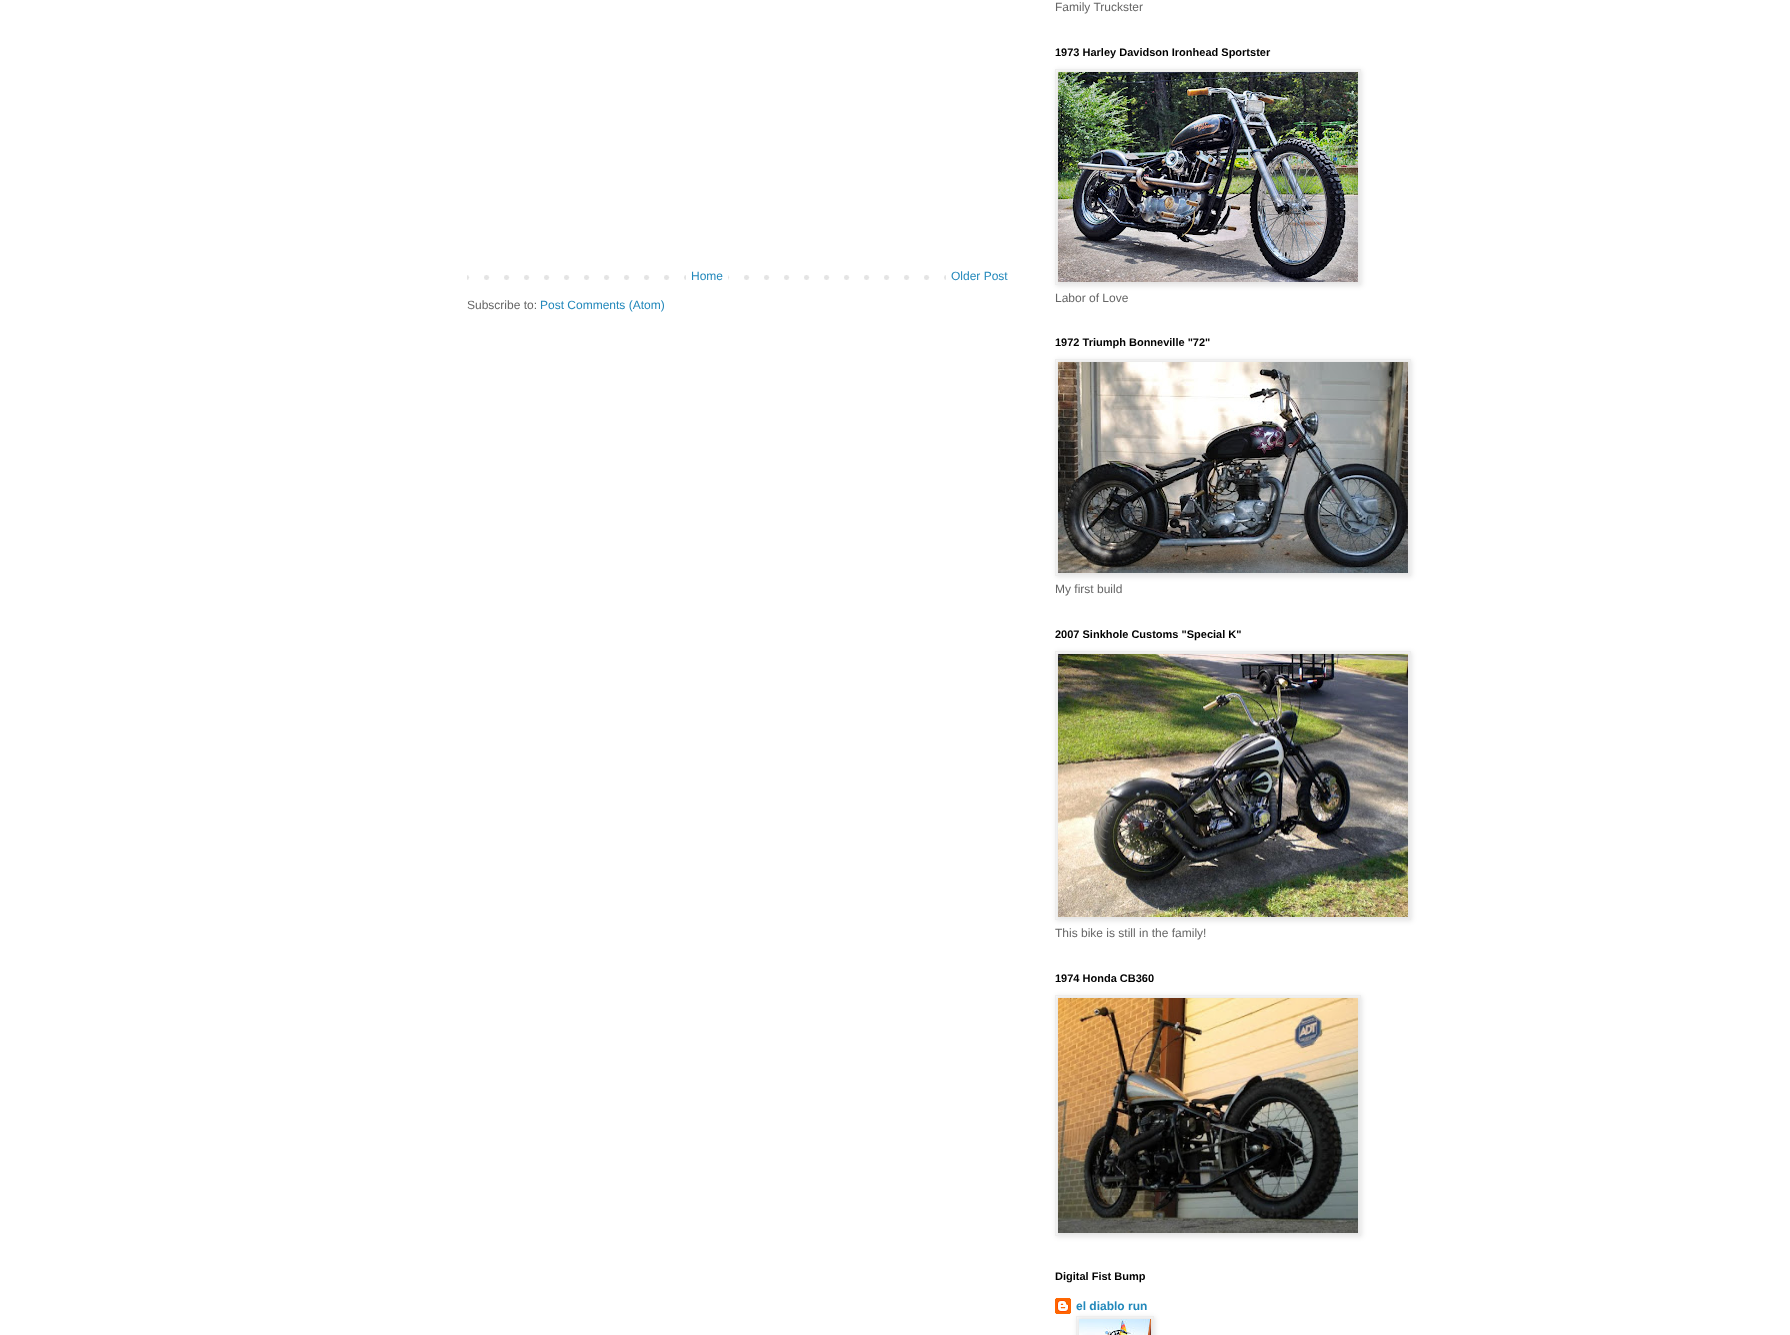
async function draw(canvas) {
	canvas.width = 1790;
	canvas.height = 1335;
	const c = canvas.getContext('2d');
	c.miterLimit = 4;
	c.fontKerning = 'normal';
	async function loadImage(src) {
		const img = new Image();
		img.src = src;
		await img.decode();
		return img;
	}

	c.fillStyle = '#fff';
	c.fillRect(0, 0, 1790, 1335);
	c.drawImage(await loadImage('img1.png'), 467, 275, 479, 5);
	c.fillRect(686, 275, 42, 5);
	c.font = '12px Liberation Sans';
	c.fillStyle = '#28b';
	c.fillText('Home', 691, 280);
	c.fillText('Older Post', 951, 280);
	c.fillStyle = '#666';
	c.fillText('Subscribe to:', 467, 309);
	c.fillStyle = '#28b';
	c.fillText('Post Comments (Atom)', 540, 309);
	c.fillStyle = '#666';
	c.fillText('Family Truckster', 1055, 11);
	c.font = 'bold 11px Liberation Sans';
	c.fillStyle = '#000';
	c.fillText('1973 Harley Davidson Ironhead Sportster', 1055, 56);
	c.fillStyle = '#0000001a';
	c.filter = 'blur(2.5px)';
	c.beginPath();
	c.rect(1056, 70, 306, 216);
	c.fill();
	c.filter = 'none';
	c.strokeStyle = '#eee';
	c.strokeRect(1055.5, 69.5, 305, 215);
	c.drawImage(await loadImage('img2.png'), 1058, 72, 300, 210);
	c.font = '12px Liberation Sans';
	c.fillStyle = '#666';
	c.fillText('Labor of Love', 1055, 302);
	c.font = 'bold 11px Liberation Sans';
	c.fillStyle = '#000';
	c.fillText('1972 Triumph Bonneville "72"', 1055, 346);
	c.fillStyle = '#0000001a';
	c.filter = 'blur(2.5px)';
	c.beginPath();
	c.rect(1056, 360, 356, 217);
	c.fill();
	c.filter = 'none';
	c.strokeRect(1055.5, 359.5, 355, 216);
	c.drawImage(await loadImage('img3.png'), 1058, 362, 350, 211);
	c.font = '12px Liberation Sans';
	c.fillStyle = '#666';
	c.fillText('My first build', 1055, 593);
	c.font = 'bold 11px Liberation Sans';
	c.fillStyle = '#000';
	c.fillText('2007 Sinkhole Customs "Special K"', 1055, 638);
	c.fillStyle = '#0000001a';
	c.filter = 'blur(2.5px)';
	c.beginPath();
	c.rect(1056, 652, 356, 269);
	c.fill();
	c.filter = 'none';
	c.strokeRect(1055.5, 651.5, 355, 268);
	c.drawImage(await loadImage('img4.png'), 1058, 654, 350, 263);
	c.font = '12px Liberation Sans';
	c.fillStyle = '#666';
	c.fillText('This bike is still in the family!', 1055, 937);
	c.font = 'bold 11px Liberation Sans';
	c.fillStyle = '#000';
	c.fillText('1974 Honda CB360', 1055, 982);
	c.fillStyle = '#0000001a';
	c.filter = 'blur(2.5px)';
	c.beginPath();
	c.rect(1056, 996, 306, 241);
	c.fill();
	c.filter = 'none';
	c.strokeRect(1055.5, 995.5, 305, 240);
	c.drawImage(await loadImage('img5.png'), 1058, 998, 300, 235);
	c.fillStyle = '#000';
	c.fillText('Digital Fist Bump', 1055, 1280);
	c.drawImage(await loadImage('img6.png'), 1055, 1298, 16, 16);
	c.font = 'bold 12px Liberation Sans';
	c.fillStyle = '#28b';
	c.fillText('el diablo run', 1076, 1310);
	c.fillStyle = '#0000001a';
	c.filter = 'blur(2.5px)';
	c.beginPath();
	c.rect(1077, 1317, 78, 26);
	c.fill();
	c.filter = 'none';
	c.strokeRect(1076.5, 1316.5, 77, 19);
	c.drawImage(await loadImage('img7.png'), 1079, 1319, 72, 16);
}

draw(document.querySelector('canvas'));
